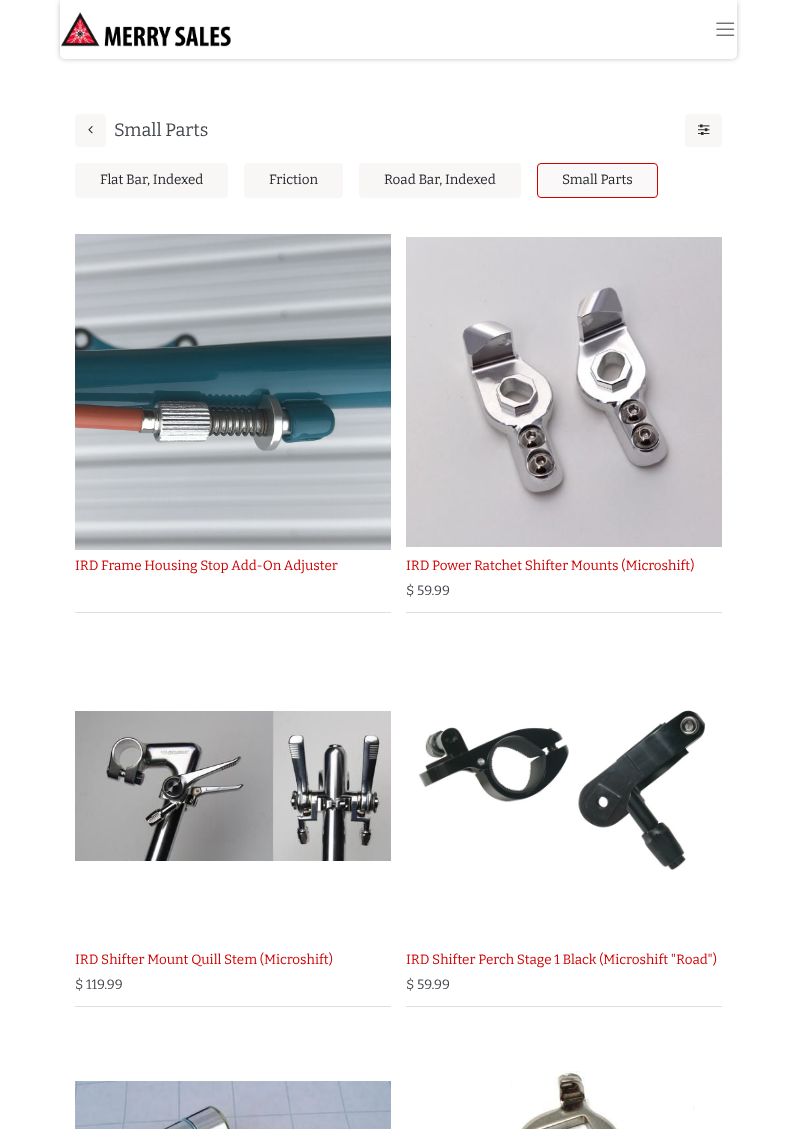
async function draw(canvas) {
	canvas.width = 797;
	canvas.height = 1129;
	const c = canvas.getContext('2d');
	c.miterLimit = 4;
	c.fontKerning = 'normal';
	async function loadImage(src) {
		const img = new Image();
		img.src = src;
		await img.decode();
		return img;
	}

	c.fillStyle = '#fff';
	c.fillRect(0, 0, 797, 1129);
	c.fillStyle = '#00000040';
	c.filter = 'blur(2.5px)';
	c.beginPath();
	c.roundRect(60, 0, 677, 59, 5);
	c.fill();
	c.filter = 'none';
	c.fillStyle = '#fff';
	c.beginPath();
	c.roundRect(60, 0, 677, 59, [0, 0, 5, 5]);
	c.fill();
	c.drawImage(await loadImage('img1.png'), 61, 12, 170, 35);
	c.drawImage(await loadImage('img2.png'), 716, 22, 19, 14);
	c.fillStyle = '#f9f6f6';
	c.beginPath();
	c.roundRect(75, 114, 31, 33, 4);
	c.fill();
	c.drawImage(await loadImage('img3.png'), 88, 126, 5, 8);
	c.font = '18px Bitter';
	c.fillStyle = '#42474c';
	c.fillText('Small Parts', 114, 136);
	c.fillStyle = '#f9f6f6';
	c.beginPath();
	c.roundRect(685, 114, 37, 33, 4);
	c.fill();
	c.drawImage(await loadImage('img4.png'), 698, 124, 12, 11);
	c.beginPath();
	c.roundRect(75, 163, 153, 35, 4);
	c.fill();
	c.font = '13.5px Bitter';
	c.fillStyle = '#212529';
	c.fillText('Flat Bar, Indexed', 100, 184);
	c.fillStyle = '#f9f6f6';
	c.beginPath();
	c.roundRect(244, 163, 99, 35, 4);
	c.fill();
	c.fillStyle = '#212529';
	c.fillText('Friction', 269, 184);
	c.fillStyle = '#f9f6f6';
	c.beginPath();
	c.roundRect(359, 163, 162, 35, 4);
	c.fill();
	c.fillStyle = '#212529';
	c.fillText('Road Bar, Indexed', 384, 184);
	c.fillStyle = '#faf8f8';
	c.beginPath();
	c.roundRect(537.5, 163.5, 120, 34, 3.5);
	c.fill();
	c.strokeStyle = '#ce0000';
	c.stroke();
	c.fillStyle = '#212529';
	c.fillText('Small Parts', 562, 184);
	c.fillStyle = '#dfdfdf';
	c.fillRect(75, 612, 316, 1);
	c.drawImage(await loadImage('img5.png'), 75, 234, 316, 316);
	c.fillStyle = '#ce0000';
	c.fillText('IRD Frame Housing Stop Add-On Adjuster', 75, 570);
	c.fillStyle = '#dfdfdf';
	c.fillRect(406, 612, 316, 1);
	c.drawImage(await loadImage('img6.png'), 406, 237, 316, 310);
	c.fillStyle = '#ce0000';
	c.fillText('IRD Power Ratchet Shifter Mounts (Microshift)', 406, 570);
	c.fillStyle = '#42474c';
	c.fillText('$ 59.99', 406, 595);
	c.fillStyle = '#dfdfdf';
	c.fillRect(75, 1006, 316, 1);
	c.drawImage(await loadImage('img7.png'), 75, 711, 316, 150);
	c.fillStyle = '#ce0000';
	c.fillText('IRD Shifter Mount Quill Stem (Microshift)', 75, 964);
	c.fillStyle = '#42474c';
	c.fillText('$ 119.99', 75, 989);
	c.fillStyle = '#dfdfdf';
	c.fillRect(406, 1006, 316, 1);
	c.drawImage(await loadImage('img8.png'), 418, 710, 288, 160);
	c.fillStyle = '#ce0000';
	c.fillText('IRD Shifter Perch Stage 1 Black (Microshift "Road")', 406, 964);
	c.fillStyle = '#42474c';
	c.fillText('$ 59.99', 406, 989);
	c.drawImage(await loadImage('img9.png'), 75, 1081, 316, 48);
	c.drawImage(await loadImage('img10.png'), 510, 1071, 185, 58);
}

draw(document.querySelector('canvas'));
